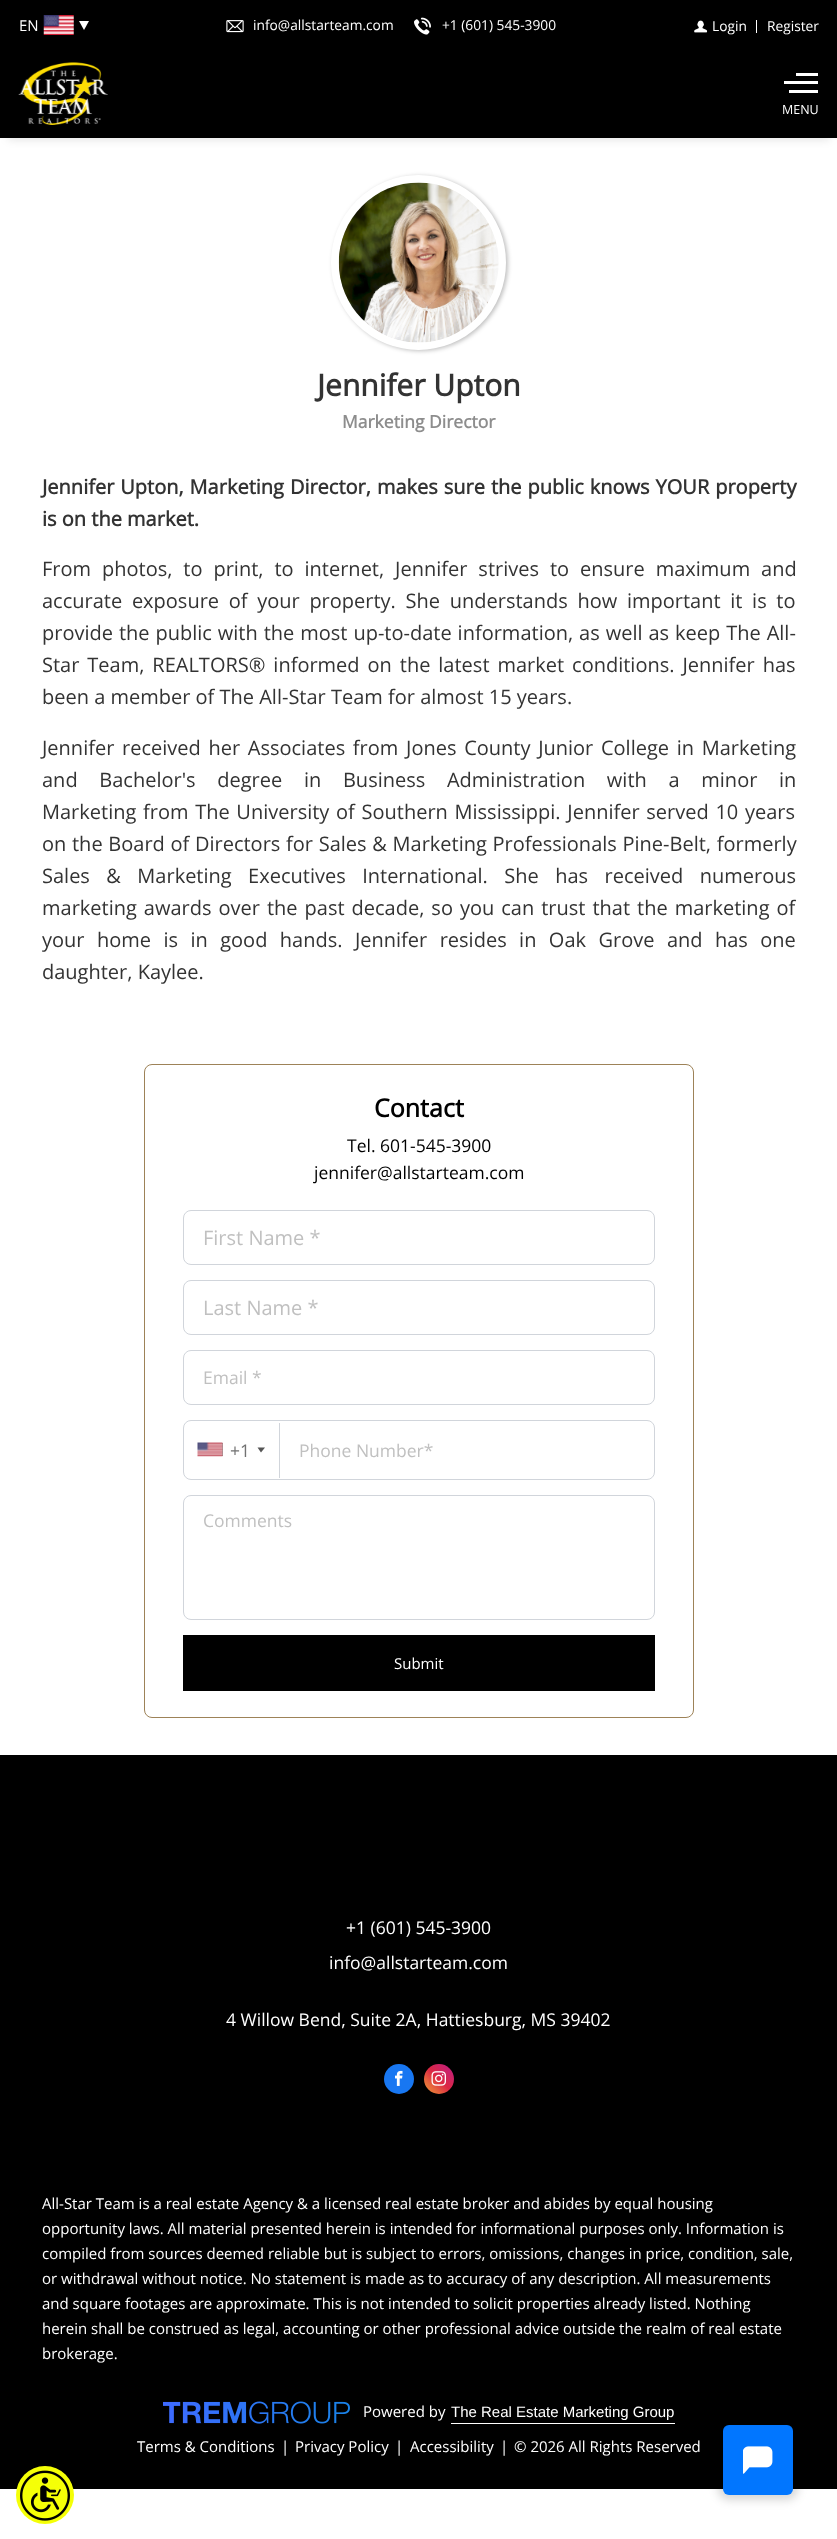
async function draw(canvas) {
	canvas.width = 837;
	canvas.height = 2539;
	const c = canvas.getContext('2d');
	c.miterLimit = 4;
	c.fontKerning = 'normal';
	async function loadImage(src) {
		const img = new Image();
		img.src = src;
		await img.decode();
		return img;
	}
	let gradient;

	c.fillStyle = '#fff';
	c.fillRect(0, 0, 837, 2539);
	c.fillStyle = '#0000001a';
	c.filter = 'blur(4px)';
	c.beginPath();
	c.rect(8, 18, 822, 122);
	c.fill();
	c.filter = 'none';
	c.fillStyle = '#000';
	c.fillRect(0, 0, 837, 138);
	c.font = '15px Open Sans';
	c.fillStyle = '#fff';
	c.fillText('EN', 19, 31);
	c.drawImage(await loadImage('img1.png'), 43, 15, 31, 20);
	c.beginPath();
	c.moveTo(79, 21);
	c.lineTo(89, 21);
	c.lineTo(84, 30);
	c.closePath();
	c.fill();
	c.drawImage(await loadImage('img2.png'), 226, 20, 18, 13);
	c.font = '13.75px Open Sans';
	c.fillText('info@allstarteam.com', 253, 30);
	c.drawImage(await loadImage('img3.png'), 414, 17, 17, 18);
	c.fillText('+1 (601) 545-3900', 442, 30);
	c.drawImage(await loadImage('img4.png'), 694, 20, 14, 13);
	c.fillText('Login', 712, 31);
	c.fillRect(756, 20, 1, 13);
	c.fillText('Register', 767, 31);
	c.drawImage(await loadImage('img5.png'), 18, 62, 90, 63);
	for (const [x, y, w, h, color] of [
		[796, 73, 22, 3, '#fff'],
		[784, 81, 34, 3, '#fff'],
		[789, 90, 29, 3, '#fff'],
	]) {
		c.fillStyle = color;
		c.fillRect(x, y, w, h);
	}
	c.font = '12.5px Open Sans';
	c.fillText('MENU', 782, 114);
	c.fillStyle = '#00000040';
	c.filter = 'blur(2px)';
	c.beginPath();
	c.roundRect(333, 176, 175, 175, 87.5);
	c.fill();
	c.filter = 'none';
	c.beginPath();
	c.arc(418.5, 262.5, 83.5, 0, 2 * Math.PI);
	c.strokeStyle = '#fff';
	c.lineWidth = 8;
	c.stroke();
	c.drawImage(await loadImage('img6.png'), 338, 182, 161, 161);
	c.font = 'bold 30px Open Sans';
	c.fillStyle = '#333';
	c.fillText('Jennifer Upton', 317, 396);
	c.font = 'bold 17.5px Open Sans';
	c.fillStyle = '#8d8d8d';
	c.fillText('Marketing Director', 342, 428);
	c.wordSpacing = '0.75px';
	c.font = 'bold 20px Open Sans';
	c.fillStyle = '#333';
	c.fillText('Jennifer Upton, Marketing Director, makes sure the public knows YOUR property', 42, 494);
	c.wordSpacing = '0px';
	c.fillText('is on the market.', 42, 526);
	c.wordSpacing = '5.75px';
	c.font = '20px Open Sans';
	c.fillText('From photos, to print, to internet, Jennifer strives to ensure maximum and', 42, 576);
	c.wordSpacing = '4.5px';
	c.fillText('accurate exposure of your property. She understands how important it is to', 42, 608);
	c.wordSpacing = '0.75px';
	c.fillText('provide the public with the most up-to-date information, as well as keep The All-', 42, 640);
	c.wordSpacing = '2.75px';
	c.fillText('Star Team, REALTORS® informed on the latest market conditions. Jennifer has', 42, 672);
	c.wordSpacing = '0px';
	c.fillText('been a member of The All-Star Team for almost 15 years.', 42, 704);
	c.wordSpacing = '2.5px';
	c.fillText('Jennifer received her Associates from Jones County Junior College in Marketing', 42, 755);
	c.wordSpacing = '16.5px';
	c.fillText('and Bachelor\'s degree in Business Administration with a minor in', 42, 787);
	c.wordSpacing = '1.5px';
	c.fillText('Marketing from The University of Southern Mississippi. Jennifer served 10 years', 42, 819);
	c.wordSpacing = '0.5px';
	c.fillText('on the Board of Directors for Sales & Marketing Professionals Pine-Belt, formerly', 42, 851);
	c.wordSpacing = '11.25px';
	c.fillText('Sales & Marketing Executives International. She has received numerous', 42, 883);
	c.wordSpacing = '1.8px';
	c.fillText('marketing awards over the past decade, so you can trust that the marketing of', 42, 915);
	c.wordSpacing = '7.25px';
	c.fillText('your home is in good hands. Jennifer resides in Oak Grove and has one', 42, 947);
	c.wordSpacing = '0px';
	c.fillText('daughter, Kaylee.', 42, 979);
	c.beginPath();
	c.roundRect(144.5, 1064.5, 549, 653, 7.5);
	c.strokeStyle = '#9d8258';
	c.lineWidth = 1;
	c.stroke();
	c.font = 'bold 25px Open Sans';
	c.fillStyle = '#000';
	c.fillText('Contact', 374, 1117);
	c.font = '17.5px Open Sans';
	c.fillText('Tel. 601-545-3900', 347, 1152);
	c.fillText('jennifer@allstarteam.com', 314, 1179);
	c.beginPath();
	c.roundRect(183.5, 1210.5, 471, 54, 7.5);
	c.strokeStyle = '#d1d5db';
	c.stroke();
	c.font = '20px Open Sans';
	c.fillStyle = '#c0c0c0';
	c.fillText('First Name *', 203, 1245);
	c.beginPath();
	c.roundRect(183.5, 1280.5, 471, 54, 7.5);
	c.stroke();
	c.fillText('Last Name *', 203, 1315);
	c.beginPath();
	c.roundRect(183.5, 1350.5, 471, 54, 7.5);
	c.stroke();
	c.font = '17.5px Open Sans';
	c.fillText('Email *', 203, 1384);
	c.beginPath();
	c.roundRect(183.5, 1420.5, 471, 59, 7.5);
	c.stroke();
	c.fillStyle = '#888';
	c.filter = 'blur(0.5px)';
	c.beginPath();
	c.rect(198, 1443, 25, 13);
	c.fill();
	c.filter = 'none';
	c.drawImage(await loadImage('img7.png'), 197, 1442, 26, 15);
	c.fillStyle = '#727272';
	c.fillText('+1', 230, 1457);
	c.fillStyle = '#555';
	c.beginPath();
	c.moveTo(257.5, 1447.5);
	c.lineTo(265, 1447.5);
	c.lineTo(261, 1452.5);
	c.closePath();
	c.fill();
	c.fillStyle = '#d1d5db';
	c.fillRect(279, 1423, 1, 55);
	c.fillStyle = '#c0c0c0';
	c.fillText('Phone Number*', 299, 1457);
	c.beginPath();
	c.roundRect(183.5, 1495.5, 471, 124, 7.5);
	c.stroke();
	c.fillText('Comments', 203, 1527);
	c.fillStyle = '#000';
	c.fillRect(183, 1635, 472, 56);
	c.font = '15px Open Sans';
	c.fillStyle = '#fff';
	c.fillText('Submit', 394, 1669);
	c.fillStyle = '#000';
	c.fillRect(0, 1755, 837, 734);
	c.font = '17.5px Open Sans';
	c.fillStyle = '#fff';
	for (const [text, x, y] of [
		['+1 (601) 545-3900', 346, 1934],
		['info@allstarteam.com', 329, 1969],
		['4 Willow Bend, Suite 2A, Hattiesburg, MS 39402', 226, 2026],
	]) {
		c.fillText(text, x, y);
	}
	c.fillStyle = '#1877f2';
	c.beginPath();
	c.arc(399, 2079, 15, 0, 2 * Math.PI);
	c.fill();
	c.drawImage(await loadImage('img8.png'), 395, 2070, 8, 16);
	gradient = c.createLinearGradient(424, 2094, 454, 2064);
	gradient.addColorStop(0, '#f09433');
	gradient.addColorStop(0.25, '#e6683c');
	gradient.addColorStop(0.5, '#dc2743');
	gradient.addColorStop(0.75, '#cc2366');
	gradient.addColorStop(1, '#bc1888');
	c.fillStyle = gradient;
	c.beginPath();
	c.arc(439, 2079, 15, 0, 2 * Math.PI);
	c.fill();
	c.drawImage(await loadImage('img9.png'), 431, 2071, 15, 15);
	c.font = '15px Open Sans';
	c.fillStyle = '#fff';
	for (const [text, x, y] of [
		['All-Star Team is a real estate Agency & a licensed real estate broker and abides by equal housing', 42, 2209],
		['opportunity laws. All material presented herein is intended for informational purposes only. Information is', 42, 2234],
		['compiled from sources deemed reliable but is subject to errors, omissions, changes in price, condition, sale,', 42, 2259],
		['or withdrawal without notice. No statement is made as to accuracy of any description. All measurements', 42, 2284],
		['and square footages are approximate. This is not intended to solicit properties already listed. Nothing', 42, 2309],
		['herein shall be construed as legal, accounting or other professional advice outside the realm of real estate', 42, 2334],
		['brokerage.', 42, 2359],
	]) {
		c.fillText(text, x, y);
	}
	c.drawImage(await loadImage('img10.png'), 163, 2401, 187, 23);
	c.fillText('Powered by', 363, 2417);
	c.font = '15px Liberation Sans';
	c.fillText('The Real Estate Marketing Group', 451, 2417);
	c.fillRect(451, 2423, 224, 1);
	c.font = '15px Open Sans';
	for (const [text, x, y] of [
		['Terms & Conditions', 137, 2452],
		['|', 281, 2452],
		['Privacy Policy', 295, 2452],
		['|', 395, 2452],
		['Accessibility', 410, 2452],
		['|', 500, 2452],
		['© 2026 All Rights Reserved', 514, 2452],
	]) {
		c.fillText(text, x, y);
	}
	c.fillStyle = '#f5ff07';
	c.beginPath();
	c.arc(45, 2495, 29, 0, 2 * Math.PI);
	c.fill();
	c.drawImage(await loadImage('img11.png'), 20, 2470, 50, 51);
	c.fillStyle = '#00000029';
	c.filter = 'blur(5px)';
	c.beginPath();
	c.roundRect(718, 2420, 80, 80, 11);
	c.fill();
	c.filter = 'none';
	c.fillStyle = '#0176ff';
	c.beginPath();
	c.roundRect(723, 2425, 70, 70, 6);
	c.fill();
	c.drawImage(await loadImage('img12.png'), 743, 2446, 30, 28);
}

draw(document.querySelector('canvas'));
